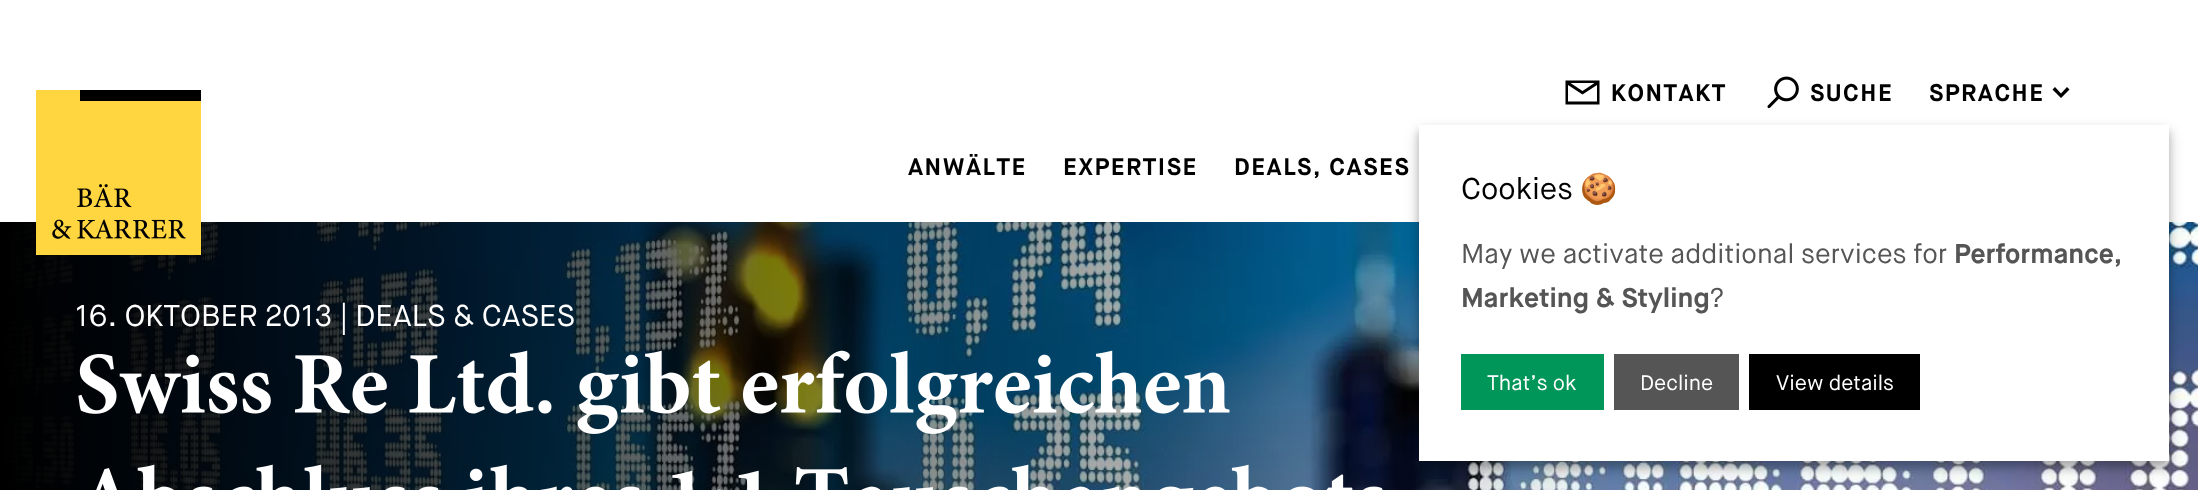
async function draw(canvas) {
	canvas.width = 2198;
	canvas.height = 490;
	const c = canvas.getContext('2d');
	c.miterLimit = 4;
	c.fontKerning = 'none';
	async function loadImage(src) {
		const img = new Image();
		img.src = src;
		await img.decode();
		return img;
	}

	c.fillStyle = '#fff';
	c.fillRect(0, 0, 2198, 490);
	c.drawImage(await loadImage('img3.png'), 0, 222, 2198, 268);
	c.drawImage(await loadImage('img1.png'), 36, 90, 165, 165);
	c.fillStyle = '#000';
	c.beginPath();
	c.moveTo(1565.5, 80.5);
	c.lineTo(1565.5, 104.5);
	c.lineTo(1599.5, 104.5);
	c.lineTo(1599.5, 80.5);
	c.closePath();
	c.moveTo(1594.5, 83);
	c.lineTo(1582.5, 91);
	c.lineTo(1570.5, 83);
	c.closePath();
	c.moveTo(1568, 101.5);
	c.lineTo(1568, 85);
	c.lineTo(1582.5, 94.5);
	c.lineTo(1597, 85);
	c.lineTo(1597, 101.5);
	c.closePath();
	c.fill();
	c.letterSpacing = '1.5px';
	c.font = 'bold 24px Maison Neue';
	c.fillText('KONTAKT', 1611, 101);
	c.drawImage(await loadImage('img2.png'), 1767, 76, 32, 33);
	c.fillText('SUCHE', 1810, 101);
	c.fillText('SPRACHE', 1929, 101);
	c.beginPath();
	c.moveTo(2052.5, 89.5);
	c.lineTo(2055, 87);
	c.lineTo(2061, 93.5);
	c.lineTo(2067, 87);
	c.lineTo(2069.5, 89.5);
	c.lineTo(2061, 98);
	c.closePath();
	c.fill();
	for (const [text, x, y] of [
		['ANWÄLTE', 908, 175],
		['EXPERTISE', 1063, 175],
		['DEALS, CASES', 1234, 175],
	]) {
		c.fillText(text, x, y);
	}
	c.letterSpacing = '0px';
	c.font = '30px Maison Neue';
	c.fillStyle = '#fff';
	c.fillText('16. OKTOBER 2013 | DEALS & CASES', 75, 326);
	c.drawImage(await loadImage('img4.png'), 78, 350, 1152, 84);
	c.drawImage(await loadImage('img5.png'), 96, 464, 1287, 26);
	c.fillStyle = '#00000030';
	c.filter = 'blur(7.5px)';
	c.beginPath();
	c.rect(1419, 132, 750, 336);
	c.fill();
	c.filter = 'none';
	c.fillStyle = '#00000033';
	c.filter = 'blur(4.5px)';
	c.beginPath();
	c.rect(1419, 131, 750, 336);
	c.fill();
	c.filter = 'none';
	c.fillStyle = '#fff';
	c.fillRect(1419, 125, 750, 336);
	c.fillStyle = '#000';
	c.fillText('Cookies', 1461, 199);
	c.font = '30px Noto Color Emoji';
	c.fillText('🍪', 1580, 199);
	c.font = '27px Maison Neue';
	c.fillStyle = '#555';
	c.fillText('May we activate additional services for', 1461, 263);
	c.font = 'bold 27px Maison Neue';
	c.fillText('Performance,', 1954, 263);
	c.fillText('Marketing & Styling', 1461, 307);
	c.font = '27px Maison Neue';
	c.fillText('?', 1710, 307);
	c.fillStyle = '#009659';
	c.fillRect(1461, 354, 143, 56);
	c.font = '21px Maison Neue';
	c.fillStyle = '#fff';
	c.fillText('That’s ok', 1487, 390);
	c.fillStyle = '#555';
	c.fillRect(1614, 354, 125, 56);
	c.fillStyle = '#fff';
	c.fillText('Decline', 1640, 390);
	c.fillStyle = '#000';
	c.fillRect(1749, 354, 171, 56);
	c.fillStyle = '#fff';
	c.fillText('View details', 1776, 390);
}

draw(document.querySelector('canvas'));
